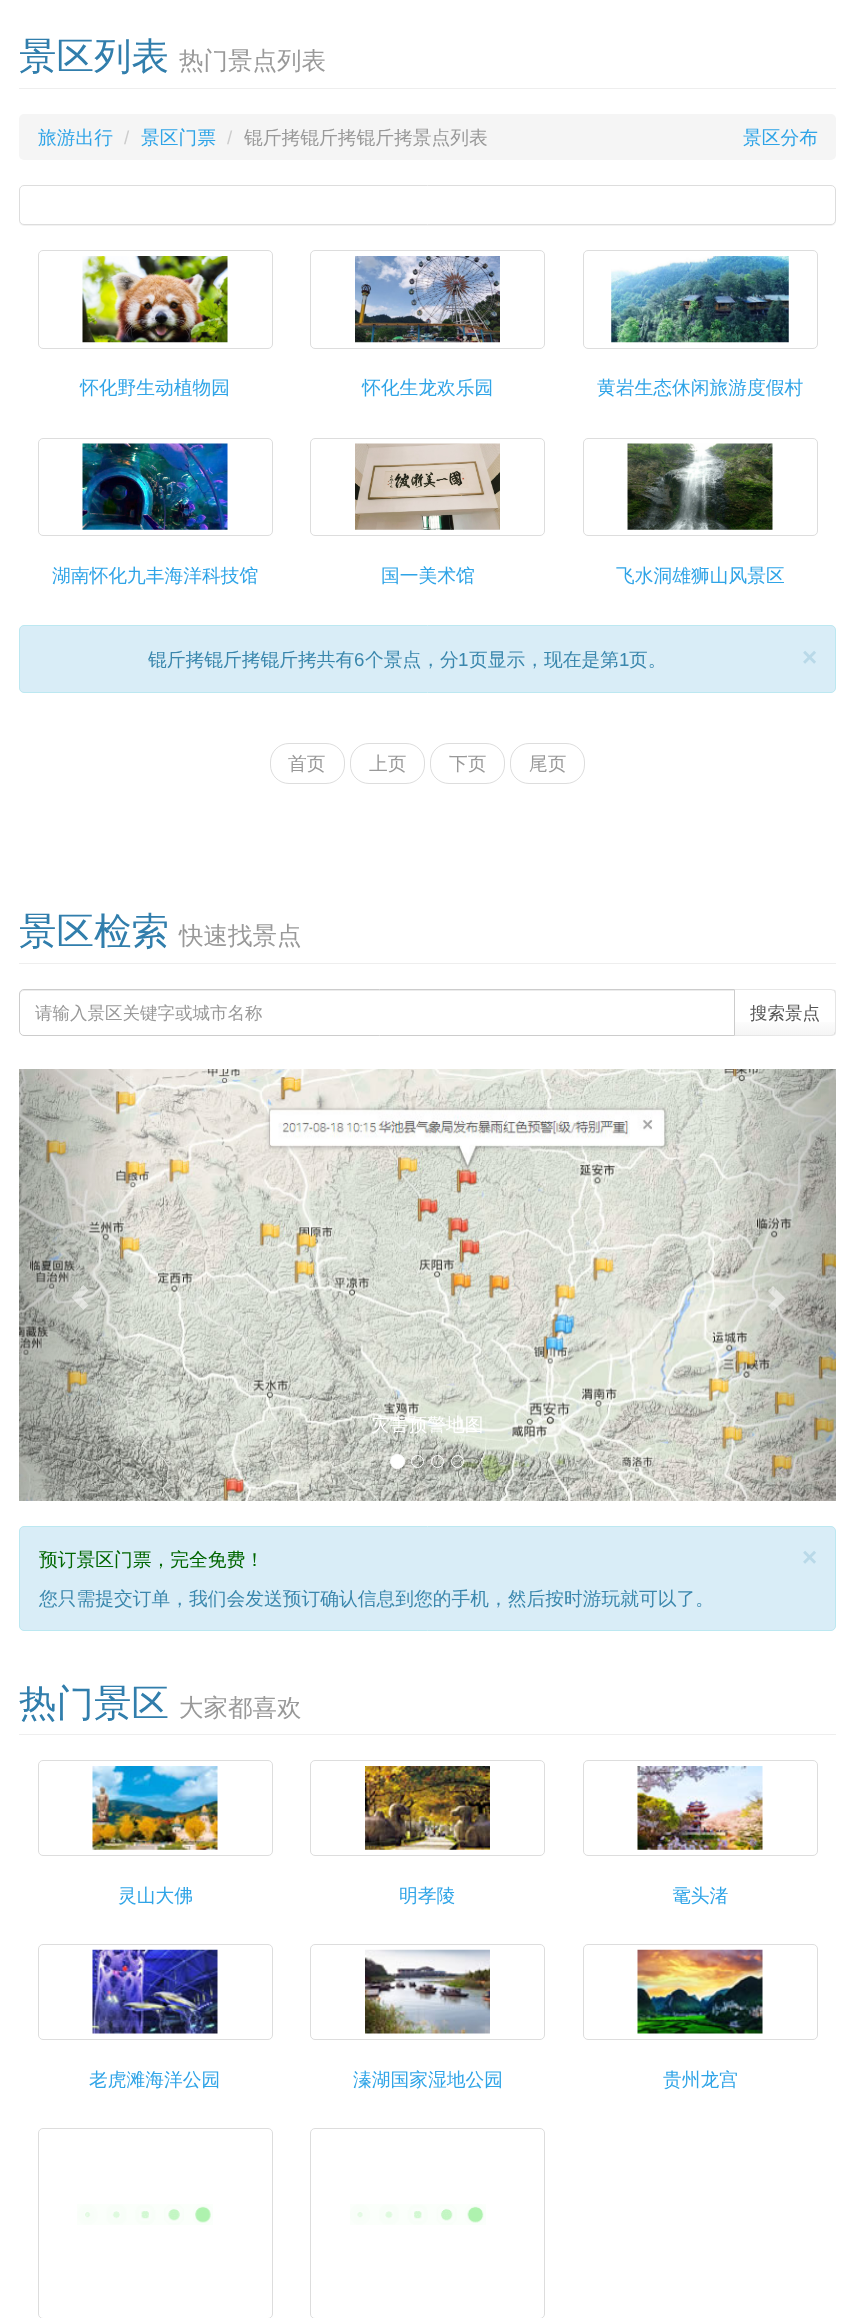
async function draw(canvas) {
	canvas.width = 855;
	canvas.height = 2318;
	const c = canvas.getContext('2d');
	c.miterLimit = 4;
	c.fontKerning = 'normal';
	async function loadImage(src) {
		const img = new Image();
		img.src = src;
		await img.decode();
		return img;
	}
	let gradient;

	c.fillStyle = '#fff';
	c.fillRect(0, 0, 855, 2318);
	c.fillStyle = '#eee';
	c.fillRect(19, 88, 817, 1);
	c.font = '500 37.5px WenQuanYi Zen Hei';
	c.fillStyle = '#317eac';
	c.fillText('景区列表', 19, 69);
	c.font = '500 24.5px WenQuanYi Zen Hei';
	c.fillStyle = '#999';
	c.fillText('热门景点列表', 179, 69);
	c.fillStyle = '#f5f5f5';
	c.beginPath();
	c.roundRect(19, 114, 817, 46, 5);
	c.fill();
	c.font = '500 18.75px WenQuanYi Zen Hei';
	c.fillStyle = '#2fa4e7';
	c.fillText('旅游出行', 38, 144);
	c.font = '18.75px Liberation Sans';
	c.fillStyle = '#ccc';
	c.fillText('/', 124, 144);
	c.font = '500 18.75px WenQuanYi Zen Hei';
	c.fillStyle = '#2fa4e7';
	c.fillText('景区门票', 141, 144);
	c.font = '18.75px Liberation Sans';
	c.fillStyle = '#ccc';
	c.fillText('/', 227, 144);
	c.font = '500 18.75px WenQuanYi Zen Hei';
	c.fillStyle = '#999';
	c.fillText('锟斤拷锟斤拷锟斤拷景点列表', 244, 144);
	c.fillStyle = '#2fa4e7';
	c.fillText('景区分布', 743, 144);
	c.fillStyle = '#0000000d';
	c.filter = 'blur(0.5px)';
	c.beginPath();
	c.roundRect(19, 186, 817, 40, 5);
	c.fill();
	c.filter = 'none';
	c.fillStyle = '#fff';
	c.beginPath();
	c.roundRect(19.5, 185.5, 816, 39, 4.5);
	c.fill();
	c.strokeStyle = '#ddd';
	c.stroke();
	c.beginPath();
	c.roundRect(38.5, 250.5, 234, 98, 4.5);
	c.stroke();
	c.drawImage(await loadImage('img1.png'), 82, 256, 146, 87);
	c.fillStyle = '#2fa4e7';
	c.fillText('怀化野生动植物园', 80, 394);
	c.beginPath();
	c.roundRect(310.5, 250.5, 234, 98, 4.5);
	c.stroke();
	c.drawImage(await loadImage('img2.png'), 355, 256, 145, 87);
	c.fillText('怀化生龙欢乐园', 362, 394);
	c.beginPath();
	c.roundRect(583.5, 250.5, 234, 98, 4.5);
	c.stroke();
	c.drawImage(await loadImage('img3.png'), 611, 256, 178, 87);
	c.fillText('黄岩生态休闲旅游度假村', 597, 394);
	c.beginPath();
	c.roundRect(38.5, 438.5, 234, 97, 4.5);
	c.stroke();
	c.drawImage(await loadImage('img4.png'), 82, 443, 146, 87);
	c.fillText('湖南怀化九丰海洋科技馆', 52, 582);
	c.beginPath();
	c.roundRect(310.5, 438.5, 234, 97, 4.5);
	c.stroke();
	c.drawImage(await loadImage('img5.png'), 355, 443, 145, 87);
	c.fillText('国一美术馆', 381, 582);
	c.beginPath();
	c.roundRect(583.5, 438.5, 234, 97, 4.5);
	c.stroke();
	c.drawImage(await loadImage('img6.png'), 627, 443, 146, 87);
	c.fillText('飞水洞雄狮山风景区', 616, 582);
	c.fillStyle = '#d9edf7';
	c.beginPath();
	c.roundRect(19.5, 625.5, 816, 67, 4.5);
	c.fill();
	c.strokeStyle = '#bce8f1';
	c.stroke();
	c.fillStyle = '#3a87ad';
	c.fillText('锟斤拷锟斤拷锟斤拷共有', 148, 666);
	c.font = '18.75px Liberation Sans';
	c.fillText('6', 354, 666);
	c.font = '500 18.75px WenQuanYi Zen Hei';
	c.fillText('个景点，分', 365, 666);
	c.font = '18.75px Liberation Sans';
	c.fillText('1', 458, 666);
	c.font = '500 18.75px WenQuanYi Zen Hei';
	c.fillText('页显示，现在是第', 469, 666);
	c.font = '18.75px Liberation Sans';
	c.fillText('1', 619, 666);
	c.font = '500 18.75px WenQuanYi Zen Hei';
	c.fillText('页。', 629, 666);
	c.font = 'bold 26px Liberation Sans';
	c.fillStyle = '#b9d9e8';
	c.fillText('×', 802, 666);
	c.beginPath();
	c.roundRect(270.5, 743.5, 74, 40, 18.5);
	c.strokeStyle = '#ddd';
	c.stroke();
	c.font = '500 18.75px WenQuanYi Zen Hei';
	c.fillStyle = '#999';
	c.fillText('首页', 288, 770);
	c.beginPath();
	c.roundRect(350.5, 743.5, 74, 40, 18.5);
	c.stroke();
	c.fillText('上页', 369, 770);
	c.beginPath();
	c.roundRect(430.5, 743.5, 74, 40, 18.5);
	c.stroke();
	c.fillText('下页', 449, 770);
	c.beginPath();
	c.roundRect(510.5, 743.5, 74, 40, 18.5);
	c.stroke();
	c.fillText('尾页', 529, 770);
	c.fillStyle = '#eee';
	c.fillRect(19, 963, 817, 1);
	c.font = '500 37.5px WenQuanYi Zen Hei';
	c.fillStyle = '#317eac';
	c.fillText('景区检索', 19, 944);
	c.font = '500 24.5px WenQuanYi Zen Hei';
	c.fillStyle = '#999';
	c.fillText('快速找景点', 179, 944);
	c.fillStyle = '#e6e6e6';
	c.beginPath();
	c.moveTo(734, 989);
	c.lineTo(735, 990);
	c.lineTo(831, 990);
	c.lineTo(834, 991);
	c.lineTo(835, 990);
	c.bezierCurveTo(834, 990, 832, 989, 831, 989);
	c.closePath();
	c.fill();
	gradient = c.createLinearGradient(785, 990, 785, 1035);
	gradient.addColorStop(0, '#fff');
	gradient.addColorStop(0.6, '#fff');
	gradient.addColorStop(1, '#f5f5f5');
	c.fillStyle = gradient;
	c.fillRect(735, 1022, 100, 13);
	c.fillStyle = '#0000001a';
	c.beginPath();
	c.moveTo(835, 990);
	c.bezierCurveTo(836, 991, 836, 992, 836, 994);
	c.lineTo(836, 1031);
	c.bezierCurveTo(836, 1032, 836, 1034, 835, 1035);
	c.lineTo(834, 1034);
	c.bezierCurveTo(834, 1033, 835, 1032, 835, 1031);
	c.lineTo(835, 994);
	c.bezierCurveTo(835, 993, 834, 992, 834, 991);
	c.closePath();
	c.fill();
	c.fillStyle = '#e6e6e6';
	c.beginPath();
	c.moveTo(835, 1035);
	c.lineTo(832, 1036);
	c.lineTo(734, 1036);
	c.lineTo(735, 1035);
	c.lineTo(831, 1035);
	c.lineTo(834, 1034);
	c.closePath();
	c.fill();
	c.fillStyle = '#fff';
	c.beginPath();
	c.roundRect(19, 989, 716, 47, [5, 0, 0, 5]);
	c.fill();
	c.fillStyle = '#ececec';
	c.beginPath();
	c.moveTo(24, 991);
	c.lineTo(734, 991);
	c.lineTo(734, 990);
	c.lineTo(24, 990);
	c.bezierCurveTo(22, 990, 20, 992, 20, 994);
	c.lineTo(20, 995);
	c.bezierCurveTo(20, 993, 22, 991, 24, 991);
	c.closePath();
	c.fill();
	c.beginPath();
	c.roundRect(19.5, 989.5, 715, 46, [4.5, 0, 0, 4.5]);
	c.strokeStyle = '#ccc';
	c.stroke();
	c.font = '500 17.5px WenQuanYi Zen Hei';
	c.fillStyle = '#999';
	c.fillText('请输入景区关键字或城市名称', 35, 1019);
	c.fillStyle = '#555';
	c.fillText('搜索景点', 750, 1019);
	c.drawImage(await loadImage('img7.png'), 19, 1069, 817, 432);
	gradient = c.createLinearGradient(19, 1285, 141, 1285);
	gradient.addColorStop(0, '#00000040');
	gradient.addColorStop(1, '#00000000');
	c.fillStyle = gradient;
	c.fillRect(19, 1069, 111, 432);
	c.fillStyle = '#ffffff80';
	c.beginPath();
	c.moveTo(71.5, 1297.5);
	c.lineTo(83.5, 1310);
	c.lineTo(88.5, 1305);
	c.lineTo(81.5, 1297.5);
	c.lineTo(88.5, 1290);
	c.lineTo(83.5, 1285);
	c.closePath();
	c.fill();
	c.font = '500 18.75px WenQuanYi Zen Hei';
	c.fillStyle = '#fff';
	c.fillText('灾害预警地图', 371, 1431);
	gradient = c.createLinearGradient(714, 1285, 836, 1285);
	gradient.addColorStop(0, '#00000000');
	gradient.addColorStop(1, '#00000040');
	c.fillStyle = gradient;
	c.fillRect(725, 1069, 111, 432);
	c.fillStyle = '#ffffff80';
	c.beginPath();
	c.moveTo(768, 1306);
	c.lineTo(775.5, 1298.5);
	c.lineTo(768, 1291);
	c.lineTo(773, 1286);
	c.lineTo(785.5, 1298.5);
	c.lineTo(773, 1311);
	c.closePath();
	c.fill();
	c.fillStyle = '#fff';
	c.beginPath();
	c.arc(397.5, 1461.5, 7, 0, 2 * Math.PI);
	c.fill();
	c.strokeStyle = '#fff';
	c.stroke();
	c.beginPath();
	c.arc(417.5, 1461.5, 6, 0, 2 * Math.PI);
	c.stroke();
	c.beginPath();
	c.arc(437.5, 1461.5, 6, 0, 2 * Math.PI);
	c.stroke();
	c.beginPath();
	c.arc(457.5, 1461.5, 6, 0, 2 * Math.PI);
	c.stroke();
	c.fillStyle = '#d9edf7';
	c.beginPath();
	c.roundRect(19.5, 1526.5, 816, 104, 4.5);
	c.fill();
	c.strokeStyle = '#bce8f1';
	c.stroke();
	c.fillStyle = '#060';
	c.fillText('预订景区门票，完全免费！', 39, 1566);
	c.font = 'bold 26px Liberation Sans';
	c.fillStyle = '#b9d9e8';
	c.fillText('×', 802, 1566);
	c.font = '500 18.75px WenQuanYi Zen Hei';
	c.fillStyle = '#3a87ad';
	c.fillText('您只需提交订单，我们会发送预订确认信息到您的手机，然后按时游玩就可以了。', 39, 1605);
	c.fillStyle = '#eee';
	c.fillRect(19, 1734, 817, 1);
	c.font = '500 37.5px WenQuanYi Zen Hei';
	c.fillStyle = '#317eac';
	c.fillText('热门景区', 19, 1716);
	c.font = '500 24.5px WenQuanYi Zen Hei';
	c.fillStyle = '#999';
	c.fillText('大家都喜欢', 179, 1716);
	c.beginPath();
	c.roundRect(38.5, 1760.5, 234, 95, 4.5);
	c.strokeStyle = '#ddd';
	c.stroke();
	c.drawImage(await loadImage('img8.png'), 92, 1766, 126, 84);
	c.font = '500 18.75px WenQuanYi Zen Hei';
	c.fillStyle = '#2fa4e7';
	c.fillText('灵山大佛', 118, 1902);
	c.beginPath();
	c.roundRect(310.5, 1760.5, 234, 95, 4.5);
	c.stroke();
	c.drawImage(await loadImage('img9.png'), 365, 1766, 125, 84);
	c.fillText('明孝陵', 399, 1902);
	c.beginPath();
	c.roundRect(583.5, 1760.5, 234, 95, 4.5);
	c.stroke();
	c.drawImage(await loadImage('img10.png'), 637, 1766, 126, 84);
	c.fillText('鼋头渚', 672, 1902);
	c.beginPath();
	c.roundRect(38.5, 1944.5, 234, 95, 4.5);
	c.stroke();
	c.drawImage(await loadImage('img11.png'), 92, 1949, 126, 85);
	c.fillText('老虎滩海洋公园', 89, 2086);
	c.beginPath();
	c.roundRect(310.5, 1944.5, 234, 95, 4.5);
	c.stroke();
	c.drawImage(await loadImage('img12.png'), 365, 1949, 125, 85);
	c.fillText('溱湖国家湿地公园', 353, 2086);
	c.beginPath();
	c.roundRect(583.5, 1944.5, 234, 95, 4.5);
	c.stroke();
	c.drawImage(await loadImage('img13.png'), 637, 1949, 126, 85);
	c.fillText('贵州龙宫', 663, 2086);
	c.beginPath();
	c.roundRect(38.5, 2128.5, 234, 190, 4.5);
	c.stroke();
	c.drawImage(await loadImage('img14.png'), 77, 2204, 136, 21);
	c.beginPath();
	c.roundRect(310.5, 2128.5, 234, 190, 4.5);
	c.stroke();
	c.drawImage(await loadImage('img15.png'), 350, 2204, 136, 21);
}

draw(document.querySelector('canvas'));
